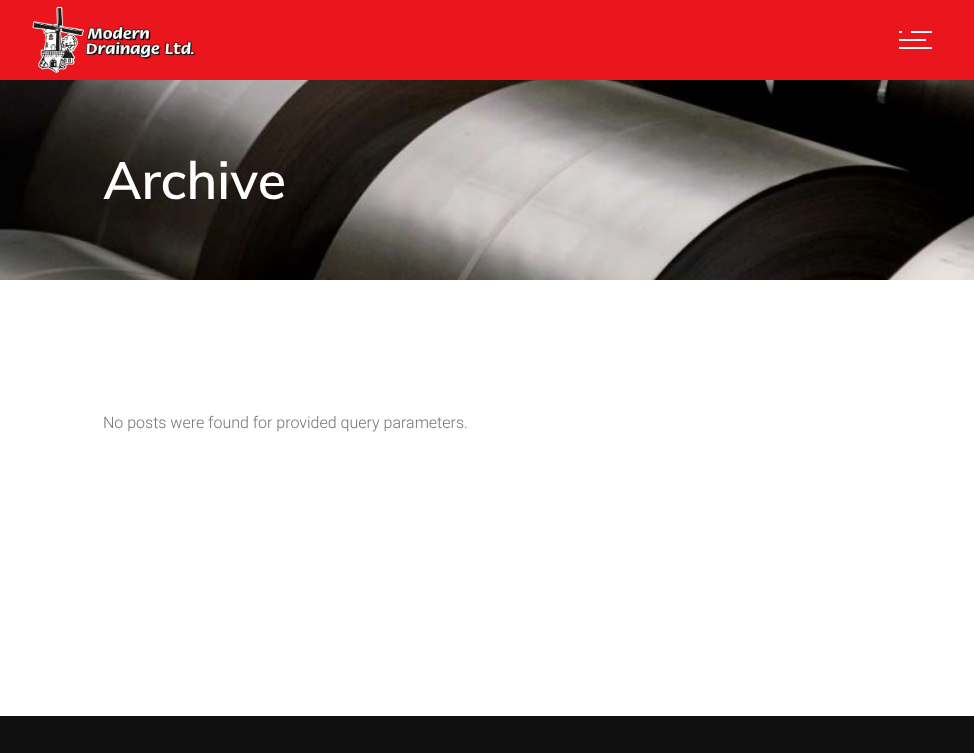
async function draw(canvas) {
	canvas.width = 974;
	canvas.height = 753;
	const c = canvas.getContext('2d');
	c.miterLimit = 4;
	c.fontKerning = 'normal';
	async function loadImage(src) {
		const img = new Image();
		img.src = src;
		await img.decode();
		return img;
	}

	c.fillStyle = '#fff';
	c.fillRect(0, 0, 974, 753);
	c.fillStyle = '#eb151d';
	c.fillRect(0, 0, 974, 80);
	c.drawImage(await loadImage('img1.png'), 32, 6, 163, 67);
	for (const [x, y, w, h, color] of [
		[899, 31, 3, 2, '#fff'],
		[911, 31, 21, 2, '#fff'],
		[899, 39, 27, 2, '#fff'],
		[899, 47, 33, 2, '#fff'],
	]) {
		c.fillStyle = color;
		c.fillRect(x, y, w, h);
	}
	c.drawImage(await loadImage('img2.png'), 0, 80, 974, 200);
	c.font = '600 52px Muli';
	c.fillText('Archive', 103, 199);
	c.font = '300 16px Roboto';
	c.fillStyle = '#747474';
	c.fillText('No posts were found for provided query parameters.', 103, 428);
	c.fillStyle = '#101010';
	c.fillRect(0, 716, 974, 37);
}

draw(document.querySelector('canvas'));
